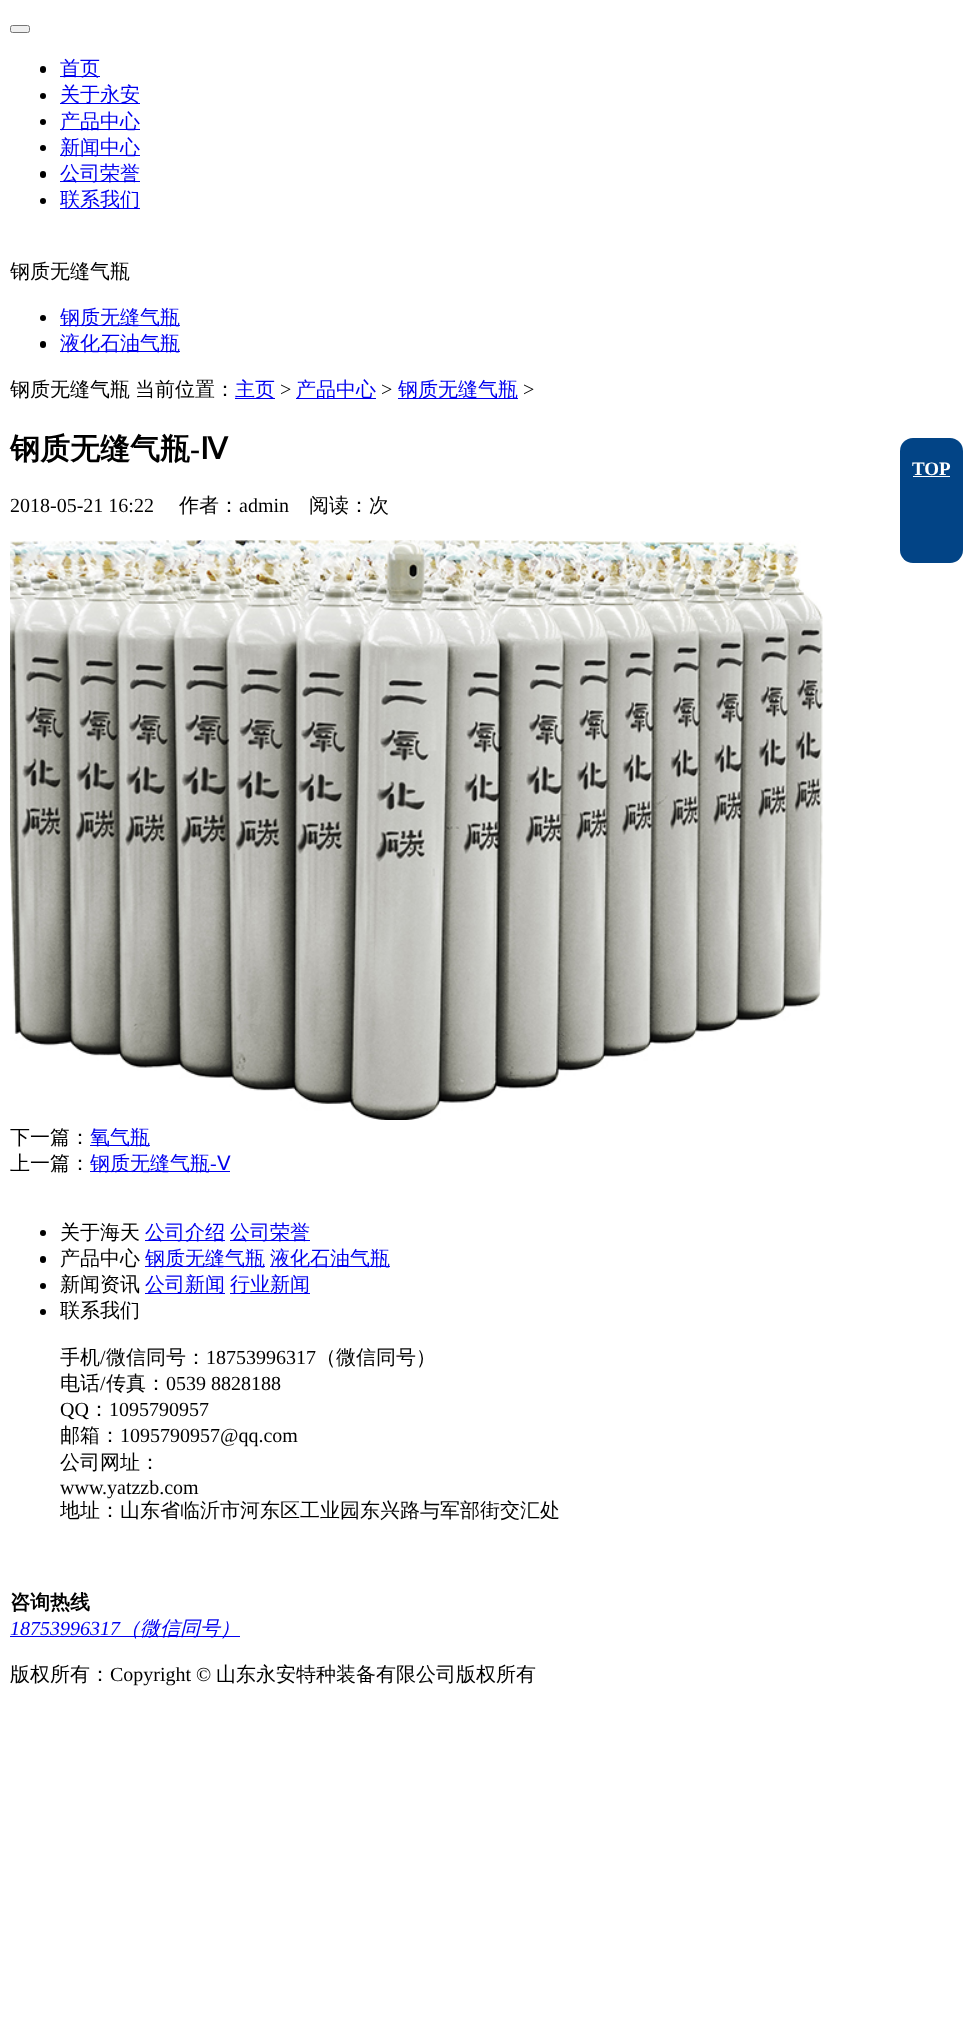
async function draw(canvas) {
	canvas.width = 975;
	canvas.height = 2028;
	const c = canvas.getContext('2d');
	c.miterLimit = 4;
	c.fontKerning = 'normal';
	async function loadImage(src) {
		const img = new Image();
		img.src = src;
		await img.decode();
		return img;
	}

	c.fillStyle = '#fff';
	c.fillRect(0, 0, 975, 2028);
	c.fillStyle = '#efefef';
	c.beginPath();
	c.roundRect(10.5, 25.5, 19, 7, 2);
	c.fill();
	c.strokeStyle = '#767676';
	c.stroke();
	c.fillStyle = '#000';
	c.beginPath();
	c.roundRect(40, 66, 6, 7, 3);
	c.fill();
	c.fillStyle = '#00e';
	c.fillRect(60, 76, 40, 1);
	c.font = '500 20px WenQuanYi Zen Hei';
	c.fillText('首页', 60, 75);
	c.fillStyle = '#000';
	c.beginPath();
	c.arc(43, 96, 3, 0, 2 * Math.PI);
	c.fill();
	c.fillStyle = '#00e';
	c.fillRect(60, 103, 80, 1);
	c.fillText('关于永安', 60, 101);
	c.fillStyle = '#000';
	c.beginPath();
	c.arc(43, 122, 3, 0, 2 * Math.PI);
	c.fill();
	c.fillStyle = '#00e';
	c.fillRect(60, 129, 80, 1);
	c.fillText('产品中心', 60, 128);
	c.fillStyle = '#000';
	c.beginPath();
	c.arc(43, 148, 3, 0, 2 * Math.PI);
	c.fill();
	c.fillStyle = '#00e';
	c.fillRect(60, 155, 80, 1);
	c.fillText('新闻中心', 60, 154);
	c.fillStyle = '#000';
	c.beginPath();
	c.roundRect(40, 171, 6, 7, 3);
	c.fill();
	c.fillStyle = '#00e';
	c.fillRect(60, 181, 80, 1);
	c.fillText('公司荣誉', 60, 180);
	c.fillStyle = '#000';
	c.beginPath();
	c.arc(43, 201, 3, 0, 2 * Math.PI);
	c.fill();
	c.fillStyle = '#00e';
	c.fillRect(60, 208, 80, 1);
	c.fillText('联系我们', 60, 206);
	c.fillStyle = '#000';
	c.fillText('钢质无缝气瓶', 10, 278);
	c.beginPath();
	c.arc(43, 318, 3, 0, 2 * Math.PI);
	c.fill();
	c.fillStyle = '#00e';
	c.fillRect(60, 325, 120, 1);
	c.fillText('钢质无缝气瓶', 60, 324);
	c.fillStyle = '#000';
	c.beginPath();
	c.roundRect(40, 341, 6, 7, 3);
	c.fill();
	c.fillStyle = '#00e';
	c.fillRect(60, 351, 120, 1);
	c.fillText('液化石油气瓶', 60, 350);
	c.fillStyle = '#000';
	c.fillText('钢质无缝气瓶', 10, 396);
	c.fillText('当前位置：', 135, 396);
	c.fillStyle = '#00e';
	c.fillRect(235, 398, 40, 1);
	c.fillText('主页', 235, 396);
	c.font = '20px Liberation Serif';
	c.fillStyle = '#000';
	c.fillText('>', 280, 396);
	c.fillStyle = '#00e';
	c.fillRect(296, 398, 80, 1);
	c.font = '500 20px WenQuanYi Zen Hei';
	c.fillText('产品中心', 296, 396);
	c.font = '20px Liberation Serif';
	c.fillStyle = '#000';
	c.fillText('>', 381, 396);
	c.fillStyle = '#00e';
	c.fillRect(398, 398, 120, 1);
	c.font = '500 20px WenQuanYi Zen Hei';
	c.fillText('钢质无缝气瓶', 398, 396);
	c.font = '20px Liberation Serif';
	c.fillStyle = '#000';
	c.fillText('>', 523, 396);
	c.font = 'bold 30px WenQuanYi Zen Hei';
	c.fillText('钢质无缝气瓶', 10, 459);
	c.font = 'bold 30px Liberation Serif';
	c.fillText('-', 190, 459);
	c.font = 'bold 30px DejaVu Sans';
	c.fillText('Ⅳ', 200, 459);
	c.font = '20px Liberation Serif';
	c.fillText('2018-05-21 16:22', 10, 512);
	c.font = '500 20px WenQuanYi Zen Hei';
	c.fillText('作者：', 179, 512);
	c.font = '20px Liberation Serif';
	c.fillText('admin', 239, 512);
	c.font = '500 20px WenQuanYi Zen Hei';
	c.fillText('阅读：次', 309, 512);
	c.drawImage(await loadImage('img1.png'), 10, 540, 813, 580);
	c.fillText('下一篇：', 10, 1144);
	c.fillStyle = '#00e';
	c.fillRect(90, 1145, 60, 1);
	c.fillText('氧气瓶', 90, 1144);
	c.fillStyle = '#000';
	c.fillText('上一篇：', 10, 1170);
	c.fillStyle = '#00e';
	c.fillRect(90, 1171, 140, 1);
	c.fillText('钢质无缝气瓶', 90, 1170);
	c.font = '20px Liberation Serif';
	c.fillText('-', 210, 1170);
	c.font = '20px DejaVu Sans';
	c.fillText('Ⅴ', 217, 1170);
	c.fillStyle = '#024486';
	c.beginPath();
	c.roundRect(900, 438, 63, 125, 13);
	c.fill();
	c.font = 'bold 19px Liberation Serif';
	c.fillStyle = '#fff';
	c.fillText('TOP', 912, 475);
	c.fillRect(913, 476, 37, 1);
	c.fillStyle = '#000';
	c.beginPath();
	c.arc(43, 1233, 3, 0, 2 * Math.PI);
	c.fill();
	c.font = '500 20px WenQuanYi Zen Hei';
	c.fillText('关于海天', 60, 1239);
	c.fillStyle = '#00e';
	c.fillRect(145, 1240, 80, 1);
	c.fillText('公司介绍', 145, 1239);
	c.fillRect(230, 1240, 80, 1);
	c.fillText('公司荣誉', 230, 1239);
	c.fillStyle = '#000';
	c.beginPath();
	c.roundRect(40, 1256, 6, 7, 3);
	c.fill();
	c.fillText('产品中心', 60, 1265);
	c.fillStyle = '#00e';
	c.fillRect(145, 1266, 120, 1);
	c.fillText('钢质无缝气瓶', 145, 1265);
	c.fillRect(270, 1266, 120, 1);
	c.fillText('液化石油气瓶', 270, 1265);
	c.fillStyle = '#000';
	c.beginPath();
	c.arc(43, 1286, 3, 0, 2 * Math.PI);
	c.fill();
	c.fillText('新闻资讯', 60, 1291);
	c.fillStyle = '#00e';
	c.fillRect(145, 1293, 80, 1);
	c.fillText('公司新闻', 145, 1291);
	c.fillRect(230, 1293, 80, 1);
	c.fillText('行业新闻', 230, 1291);
	c.fillStyle = '#000';
	c.beginPath();
	c.arc(43, 1312, 3, 0, 2 * Math.PI);
	c.fill();
	c.fillText('联系我们', 60, 1317);
	c.fillText('手机', 60, 1364);
	c.font = '20px Liberation Serif';
	c.fillText('/', 100, 1364);
	c.font = '500 20px WenQuanYi Zen Hei';
	c.fillText('微信同号：', 106, 1364);
	c.font = '20px Liberation Serif';
	c.fillText('18753996317', 206, 1364);
	c.font = '500 20px WenQuanYi Zen Hei';
	c.fillText('（微信同号）', 316, 1364);
	c.fillText('电话', 60, 1390);
	c.font = '20px Liberation Serif';
	c.fillText('/', 100, 1390);
	c.font = '500 20px WenQuanYi Zen Hei';
	c.fillText('传真：', 106, 1390);
	c.font = '20px Liberation Serif';
	c.fillText('0539 8828188', 166, 1390);
	c.fillText('QQ', 60, 1416);
	c.font = '500 20px WenQuanYi Zen Hei';
	c.fillText('：', 89, 1416);
	c.font = '20px Liberation Serif';
	c.fillText('1095790957', 109, 1416);
	c.font = '500 20px WenQuanYi Zen Hei';
	c.fillText('邮箱：', 60, 1442);
	c.font = '20px Liberation Serif';
	c.fillText('1095790957@qq.com', 120, 1442);
	c.font = '500 20px WenQuanYi Zen Hei';
	c.fillText('公司网址：', 60, 1469);
	c.font = '20px Liberation Serif';
	c.fillText('www.yatzzb.com', 60, 1494);
	c.font = '500 20px WenQuanYi Zen Hei';
	c.fillText('地址：山东省临沂市河东区工业园东兴路与军部街交汇处', 60, 1517);
	c.font = 'bold 20px WenQuanYi Zen Hei';
	c.fillText('咨询热线', 10, 1609);
	c.font = 'italic 20px Liberation Serif';
	c.fillStyle = '#00e';
	c.fillText('18753996317', 10, 1635);
	c.fillRect(10, 1636, 230, 1);
	c.font = 'italic 500 20px WenQuanYi Zen Hei';
	c.fillText('（微信同号）', 120, 1635);
	c.font = '500 20px WenQuanYi Zen Hei';
	c.fillStyle = '#000';
	c.fillText('版权所有：', 10, 1681);
	c.font = '20px Liberation Serif';
	c.fillText('Copyright ©', 110, 1681);
	c.font = '500 20px WenQuanYi Zen Hei';
	c.fillText('山东永安特种装备有限公司版权所有', 216, 1681);
}

draw(document.querySelector('canvas'));
